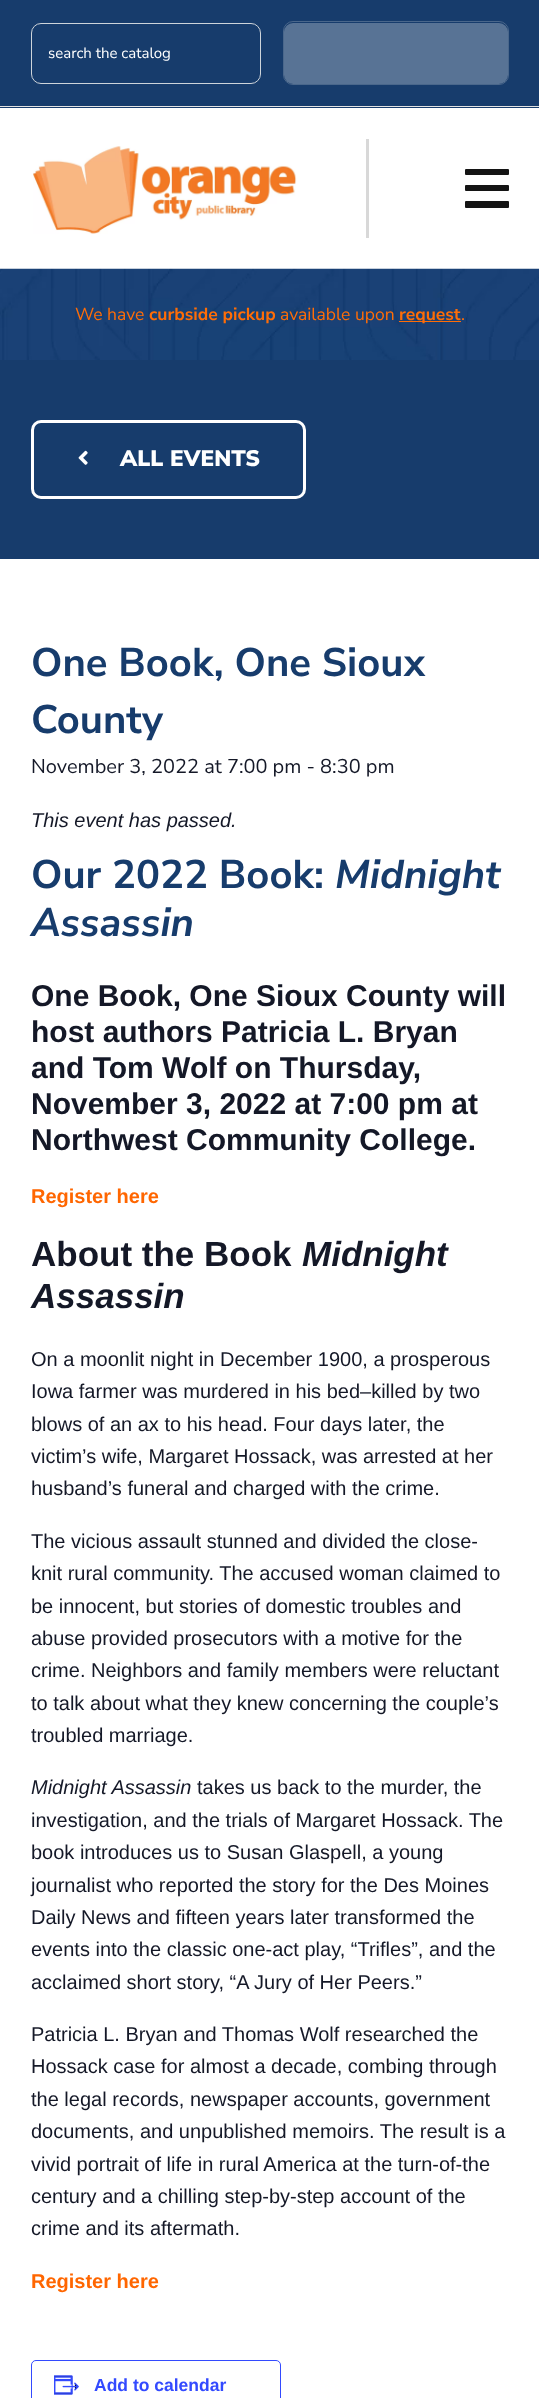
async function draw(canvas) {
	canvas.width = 539;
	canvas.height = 2398;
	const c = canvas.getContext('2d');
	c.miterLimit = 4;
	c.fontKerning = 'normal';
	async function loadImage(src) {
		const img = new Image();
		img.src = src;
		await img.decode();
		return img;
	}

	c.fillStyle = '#fff';
	c.fillRect(0, 0, 539, 2398);
	c.fillStyle = '#173c6c';
	c.fillRect(0, 0, 539, 108);
	c.fillStyle = '#e3e3e3';
	c.fillRect(0, 106, 539, 1);
	c.beginPath();
	c.roundRect(31.5, 23.5, 229, 60, 9.5);
	c.strokeStyle = '#ced4da';
	c.stroke();
	c.font = '15px Nunito Sans';
	c.fillStyle = '#fff';
	c.fillText('search the catalog', 48, 58);
	c.fillStyle = '#587395';
	c.beginPath();
	c.roundRect(284, 23, 224, 61, 9);
	c.fill();
	c.beginPath();
	c.roundRect(283.5, 21.5, 225, 63, 9.5);
	c.strokeStyle = '#4a678b';
	c.stroke();
	c.fillStyle = '#d8d8d8';
	c.fillRect(366, 139, 3, 99);
	c.drawImage(await loadImage('img1.png'), 33, 146, 264, 88);
	c.fillStyle = '#141414';
	c.beginPath();
	c.roundRect(465, 169, 44, 6, 1);
	c.fill();
	c.beginPath();
	c.roundRect(465, 185, 44, 6, 1);
	c.fill();
	c.beginPath();
	c.roundRect(465, 201, 44, 7, 1);
	c.fill();
	c.drawImage(await loadImage('img2.png'), 0, 268, 539, 92);
	c.font = '17.5px Nunito Sans';
	c.fillStyle = '#ff6d07';
	c.fillText('We have', 75, 320);
	c.font = 'bold 17.5px Nunito Sans';
	c.fillText('curbside pickup', 149, 320);
	c.font = '17.5px Nunito Sans';
	c.fillText('available upon', 280, 320);
	c.fillRect(399, 321, 62, 1);
	c.font = 'bold 17.5px Nunito Sans';
	c.fillText('request', 399, 320);
	c.font = '17.5px Nunito Sans';
	c.fillText('.', 461, 320);
	c.fillStyle = '#173c6c';
	c.fillRect(0, 360, 539, 199);
	c.beginPath();
	c.roundRect(32.5, 421.5, 272, 76, 8.5);
	c.strokeStyle = '#fff';
	c.lineWidth = 3;
	c.stroke();
	c.drawImage(await loadImage('img3.png'), 78, 450, 10, 15);
	c.font = '900 22.5px Nunito Sans';
	c.fillStyle = '#fff';
	c.fillText('ALL EVENTS', 120, 466);
	c.font = 'bold 40px Nunito Sans';
	c.fillStyle = '#173c6c';
	c.fillText('One Book, One Sioux', 31, 676);
	c.fillText('County', 31, 733);
	c.font = '20px Nunito Sans';
	c.fillStyle = '#141827';
	c.fillText('November 3, 2022 at 7:00 pm - 8:30 pm', 31, 773);
	c.font = 'italic 20px Liberation Sans';
	c.fillText('This event has passed.', 31, 827);
	c.font = 'bold 40px Nunito Sans';
	c.fillStyle = '#173c6c';
	c.fillText('Our 2022 Book:', 31, 888);
	c.font = 'italic bold 40px Nunito Sans';
	c.fillText('Midnight', 335, 888);
	c.fillText('Assassin', 31, 936);
	c.font = 'bold 30px Liberation Sans';
	c.fillStyle = '#141827';
	for (const [text, x, y] of [
		['One Book, One Sioux County will', 31, 1006],
		['host authors Patricia L. Bryan', 31, 1042],
		['and Tom Wolf on Thursday,', 31, 1078],
		['November 3, 2022 at 7:00 pm at', 31, 1114],
		['Northwest Community College.', 31, 1150],
	]) {
		c.fillText(text, x, y);
	}
	c.font = 'bold 20px Liberation Sans';
	c.fillStyle = '#f60';
	c.fillText('Register here', 31, 1203);
	c.font = 'bold 35px Liberation Sans';
	c.fillStyle = '#141827';
	c.fillText('About the Book', 31, 1266);
	c.font = 'italic bold 35px Liberation Sans';
	c.fillText('Midnight', 302, 1266);
	c.fillText('Assassin', 31, 1308);
	c.font = '20px Liberation Sans';
	for (const [text, x, y] of [
		['On a moonlit night in December 1900, a prosperous', 31, 1366],
		['Iowa farmer was murdered in his bed–killed by two', 31, 1398],
		['blows of an ax to his head. Four days later, the', 31, 1431],
		['victim’s wife, Margaret Hossack, was arrested at her', 31, 1463],
		['husband’s funeral and charged with the crime.', 31, 1495],
		['The vicious assault stunned and divided the close-', 31, 1548],
		['knit rural community. The accused woman claimed to', 31, 1580],
		['be innocent, but stories of domestic troubles and', 31, 1613],
		['abuse provided prosecutors with a motive for the', 31, 1645],
		['crime. Neighbors and family members were reluctant', 31, 1677],
		['to talk about what they knew concerning the couple’s', 31, 1710],
		['troubled marriage.', 31, 1742],
	]) {
		c.fillText(text, x, y);
	}
	c.font = 'italic 20px Liberation Sans';
	c.fillText('Midnight Assassin', 31, 1794);
	c.font = '20px Liberation Sans';
	for (const [text, x, y] of [
		['takes us back to the murder, the', 197, 1794],
		['investigation, and the trials of Margaret Hossack. The', 31, 1827],
		['book introduces us to Susan Glaspell, a young', 31, 1859],
		['journalist who reported the story for the Des Moines', 31, 1892],
		['Daily News and fifteen years later transformed the', 31, 1924],
		['events into the classic one-act play, “Trifles”, and the', 31, 1956],
		['acclaimed short story, “A Jury of Her Peers.”', 31, 1989],
		['Patricia L. Bryan and Thomas Wolf researched the', 31, 2041],
		['Hossack case for almost a decade, combing through', 31, 2073],
		['the legal records, newspaper accounts, government', 31, 2106],
		['documents, and unpublished memoirs. The result is a', 31, 2138],
		['vivid portrait of life in rural America at the turn-of-the', 31, 2171],
		['century and a chilling step-by-step account of the', 31, 2203],
		['crime and its aftermath.', 31, 2235],
	]) {
		c.fillText(text, x, y);
	}
	c.font = 'bold 20px Liberation Sans';
	c.fillStyle = '#f60';
	c.fillText('Register here', 31, 2288);
	c.beginPath();
	c.roundRect(31.5, 2360.5, 249, 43, 4.5);
	c.strokeStyle = '#334aff';
	c.lineWidth = 1;
	c.stroke();
	c.drawImage(await loadImage('img4.png'), 54, 2375, 25, 20);
	c.font = 'bold 17.5px Liberation Sans';
	c.fillStyle = '#334aff';
	c.fillText('Add to calendar', 94, 2391);
}

draw(document.querySelector('canvas'));
